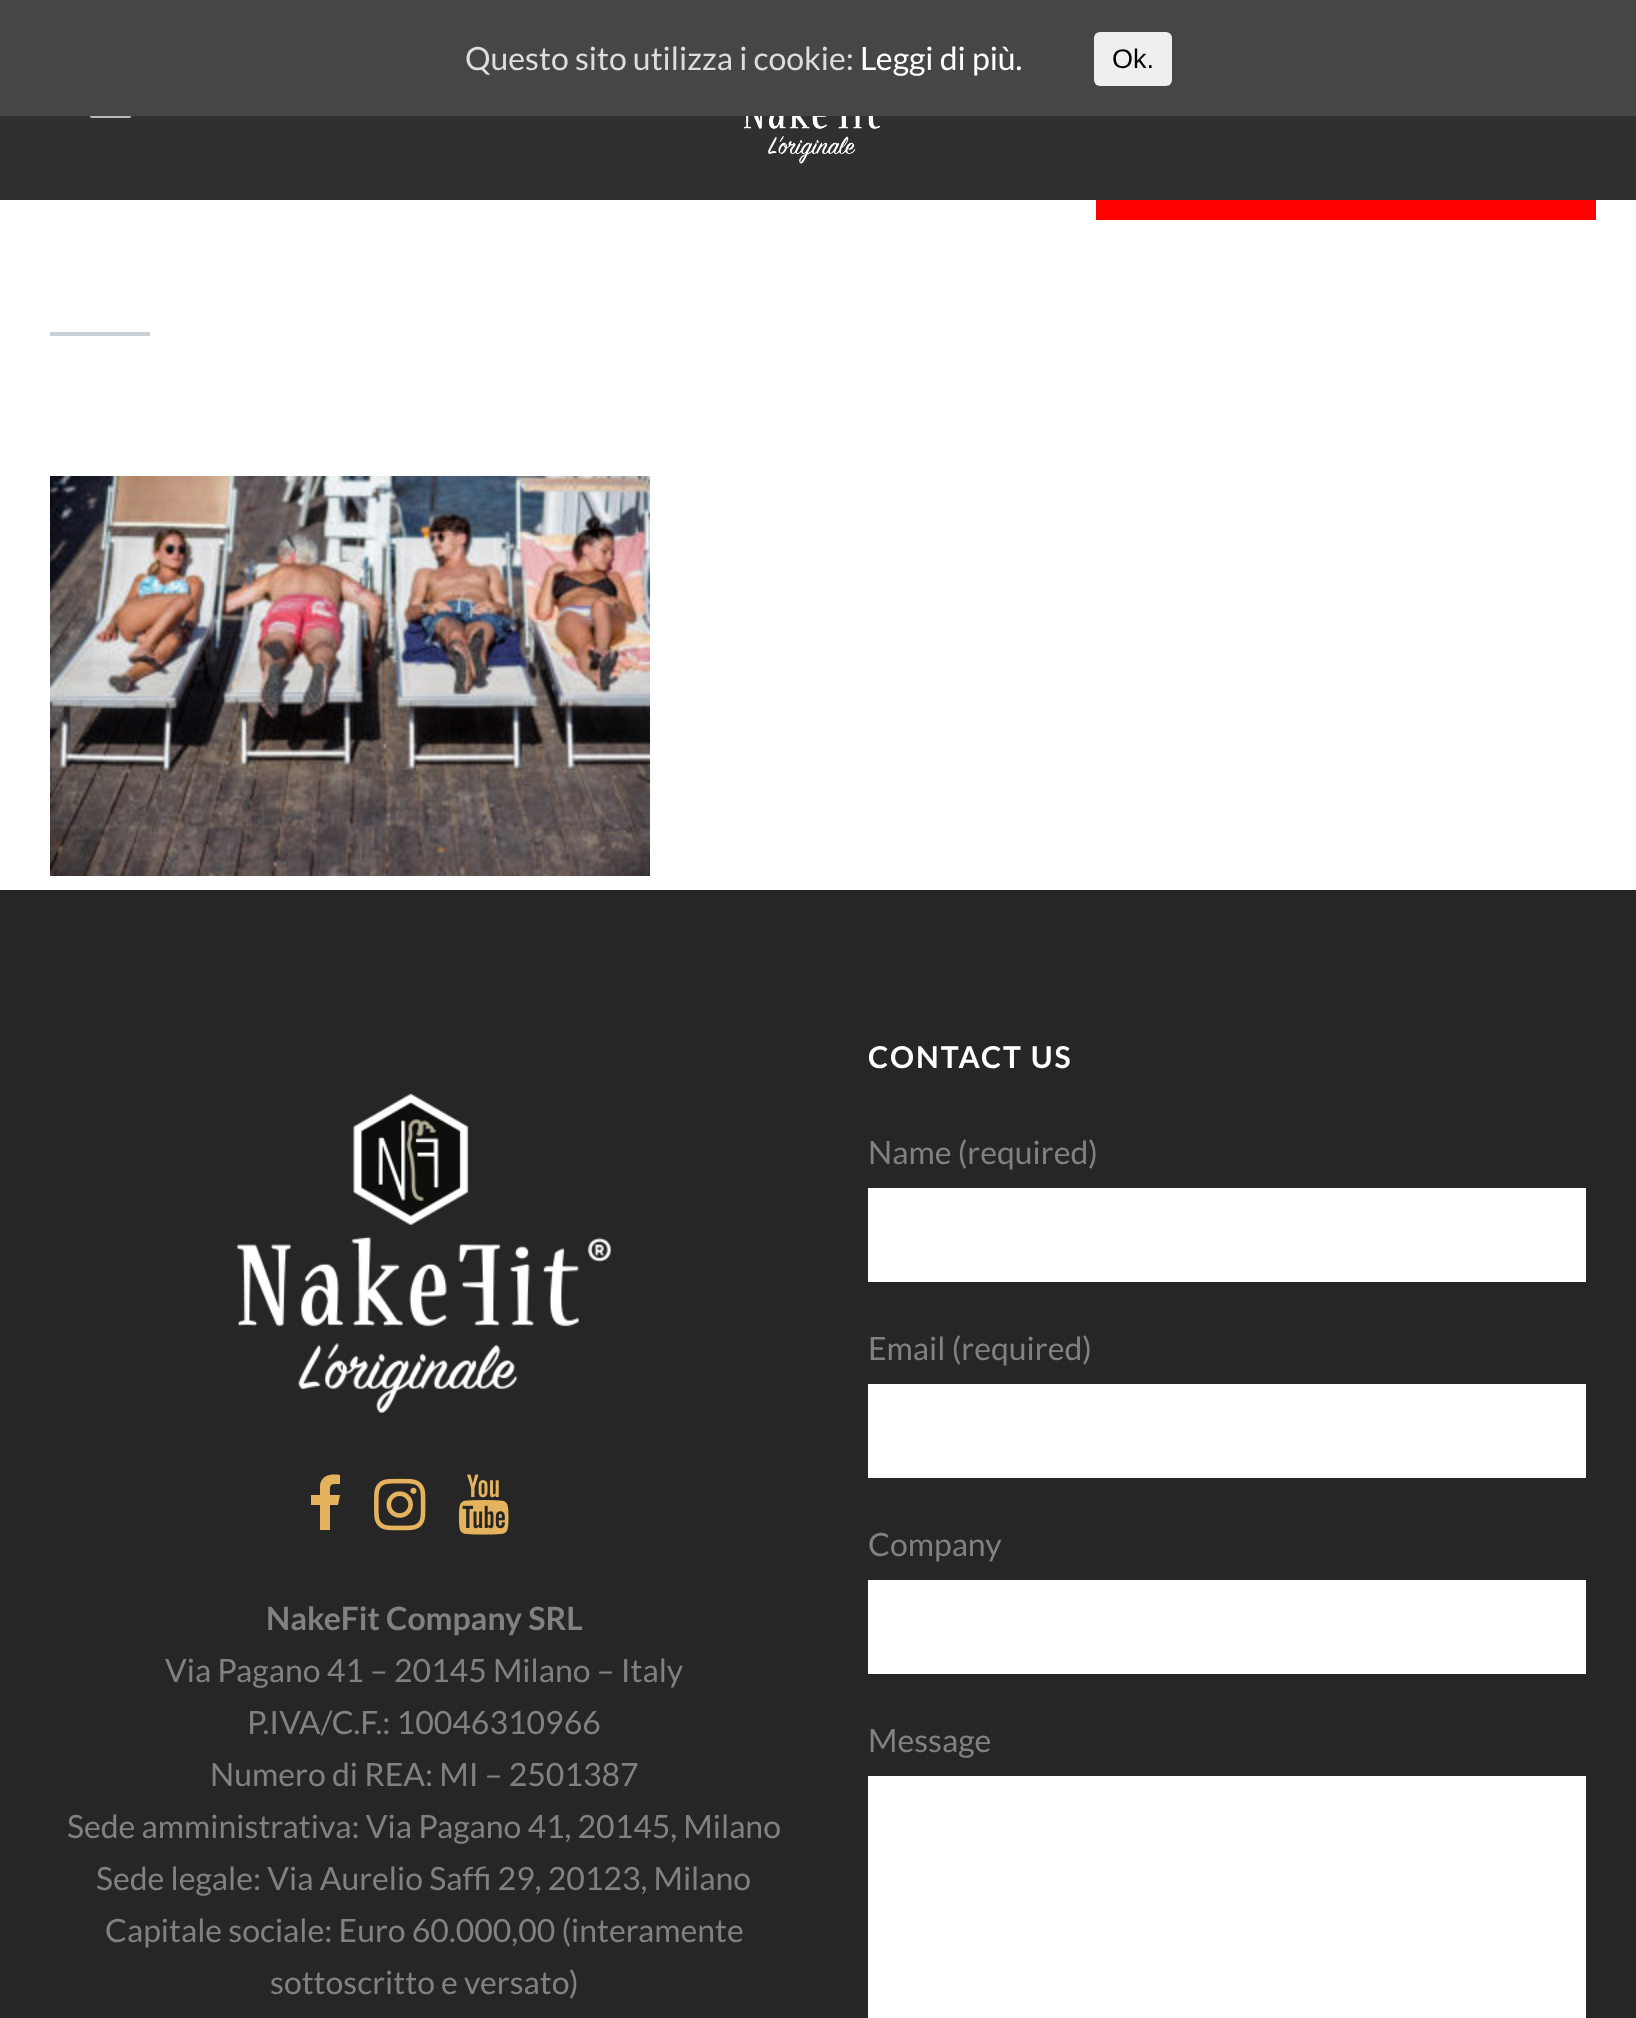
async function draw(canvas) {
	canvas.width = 1636;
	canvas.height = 2018;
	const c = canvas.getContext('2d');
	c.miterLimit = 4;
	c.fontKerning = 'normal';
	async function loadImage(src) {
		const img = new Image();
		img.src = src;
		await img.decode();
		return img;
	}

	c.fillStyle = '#fff';
	c.fillRect(0, 0, 1636, 2018);
	c.fillStyle = '#464646';
	c.fillRect(0, 0, 1636, 116);
	c.font = '32px Lato';
	c.fillStyle = '#ddd';
	c.fillText('Questo sito utilizza i cookie:', 465, 70);
	c.fillStyle = '#fff';
	c.fillText('Leggi di più.', 860, 70);
	c.fillStyle = '#efefef';
	c.beginPath();
	c.roundRect(1094, 32, 78, 54, 6);
	c.fill();
	c.font = '27px Liberation Sans';
	c.fillStyle = '#000';
	c.fillText('Ok.', 1112, 68);
	c.fillStyle = '#f00';
	c.fillRect(1096, 200, 500, 20);
	c.fillStyle = '#303030';
	c.fillRect(0, 116, 1636, 84);
	c.drawImage(await loadImage('img1.png'), 90, 116, 42, 2);
	c.drawImage(await loadImage('img2.png'), 744, 116, 136, 48);
	c.fillStyle = '#cbcfd7';
	c.fillRect(50, 332, 100, 4);
	c.drawImage(await loadImage('img3.png'), 50, 476, 600, 400);
	c.fillStyle = '#262626';
	c.fillRect(0, 890, 1636, 1128);
	c.letterSpacing = '2px';
	c.font = 'bold 30px Lato';
	c.fillStyle = '#fff';
	c.fillText('CONTACT US', 868, 1068);
	c.letterSpacing = '0px';
	c.font = '32px Lato';
	c.fillStyle = '#818181';
	c.fillText('Name (required)', 868, 1164);
	c.fillStyle = '#fff';
	c.fillRect(868, 1188, 718, 94);
	c.fillStyle = '#818181';
	c.fillText('Email (required)', 868, 1360);
	c.fillStyle = '#fff';
	c.fillRect(868, 1384, 718, 94);
	c.fillStyle = '#818181';
	c.fillText('Company', 868, 1556);
	c.fillStyle = '#fff';
	c.fillRect(868, 1580, 718, 94);
	c.fillStyle = '#818181';
	c.fillText('Message', 868, 1752);
	c.fillStyle = '#fff';
	c.fillRect(868, 1776, 718, 242);
	c.drawImage(await loadImage('img4.png'), 237, 1093, 374, 320);
	c.fillStyle = '#e5b35e';
	c.beginPath();
	c.moveTo(340, 1475);
	c.lineTo(340, 1484);
	c.bezierCurveTo(329, 1484, 330, 1484, 330, 1495);
	c.lineTo(340, 1495);
	c.lineTo(338, 1505);
	c.lineTo(330, 1505);
	c.lineTo(330, 1530);
	c.lineTo(320, 1530);
	c.lineTo(320, 1505);
	c.lineTo(311, 1505);
	c.lineTo(311, 1495);
	c.lineTo(320, 1495);
	c.lineTo(320, 1485);
	c.bezierCurveTo(322, 1474, 332, 1474, 340, 1475);
	c.closePath();
	c.fill();
	c.drawImage(await loadImage('img5.png'), 374, 1478, 52, 53);
	c.drawImage(await loadImage('img6.png'), 458, 1474, 51, 61);
	c.font = 'bold 32px Lato';
	c.fillStyle = '#818181';
	c.fillText('NakeFit Company SRL', 266, 1630);
	c.font = '32px Lato';
	for (const [text, x, y] of [
		['Via Pagano 41 – 20145 Milano – Italy', 165, 1682],
		['P.IVA/C.F.: 10046310966', 247, 1734],
		['Numero di REA: MI – 2501387', 210, 1786],
		['Sede amministrativa: Via Pagano 41, 20145, Milano', 67, 1838],
		['Sede legale: Via Aurelio Saffi 29, 20123, Milano', 96, 1890],
		['Capitale sociale: Euro 60.000,00 (interamente', 105, 1942],
		['sottoscritto e versato)', 270, 1994],
	]) {
		c.fillText(text, x, y);
	}
}

draw(document.querySelector('canvas'));
